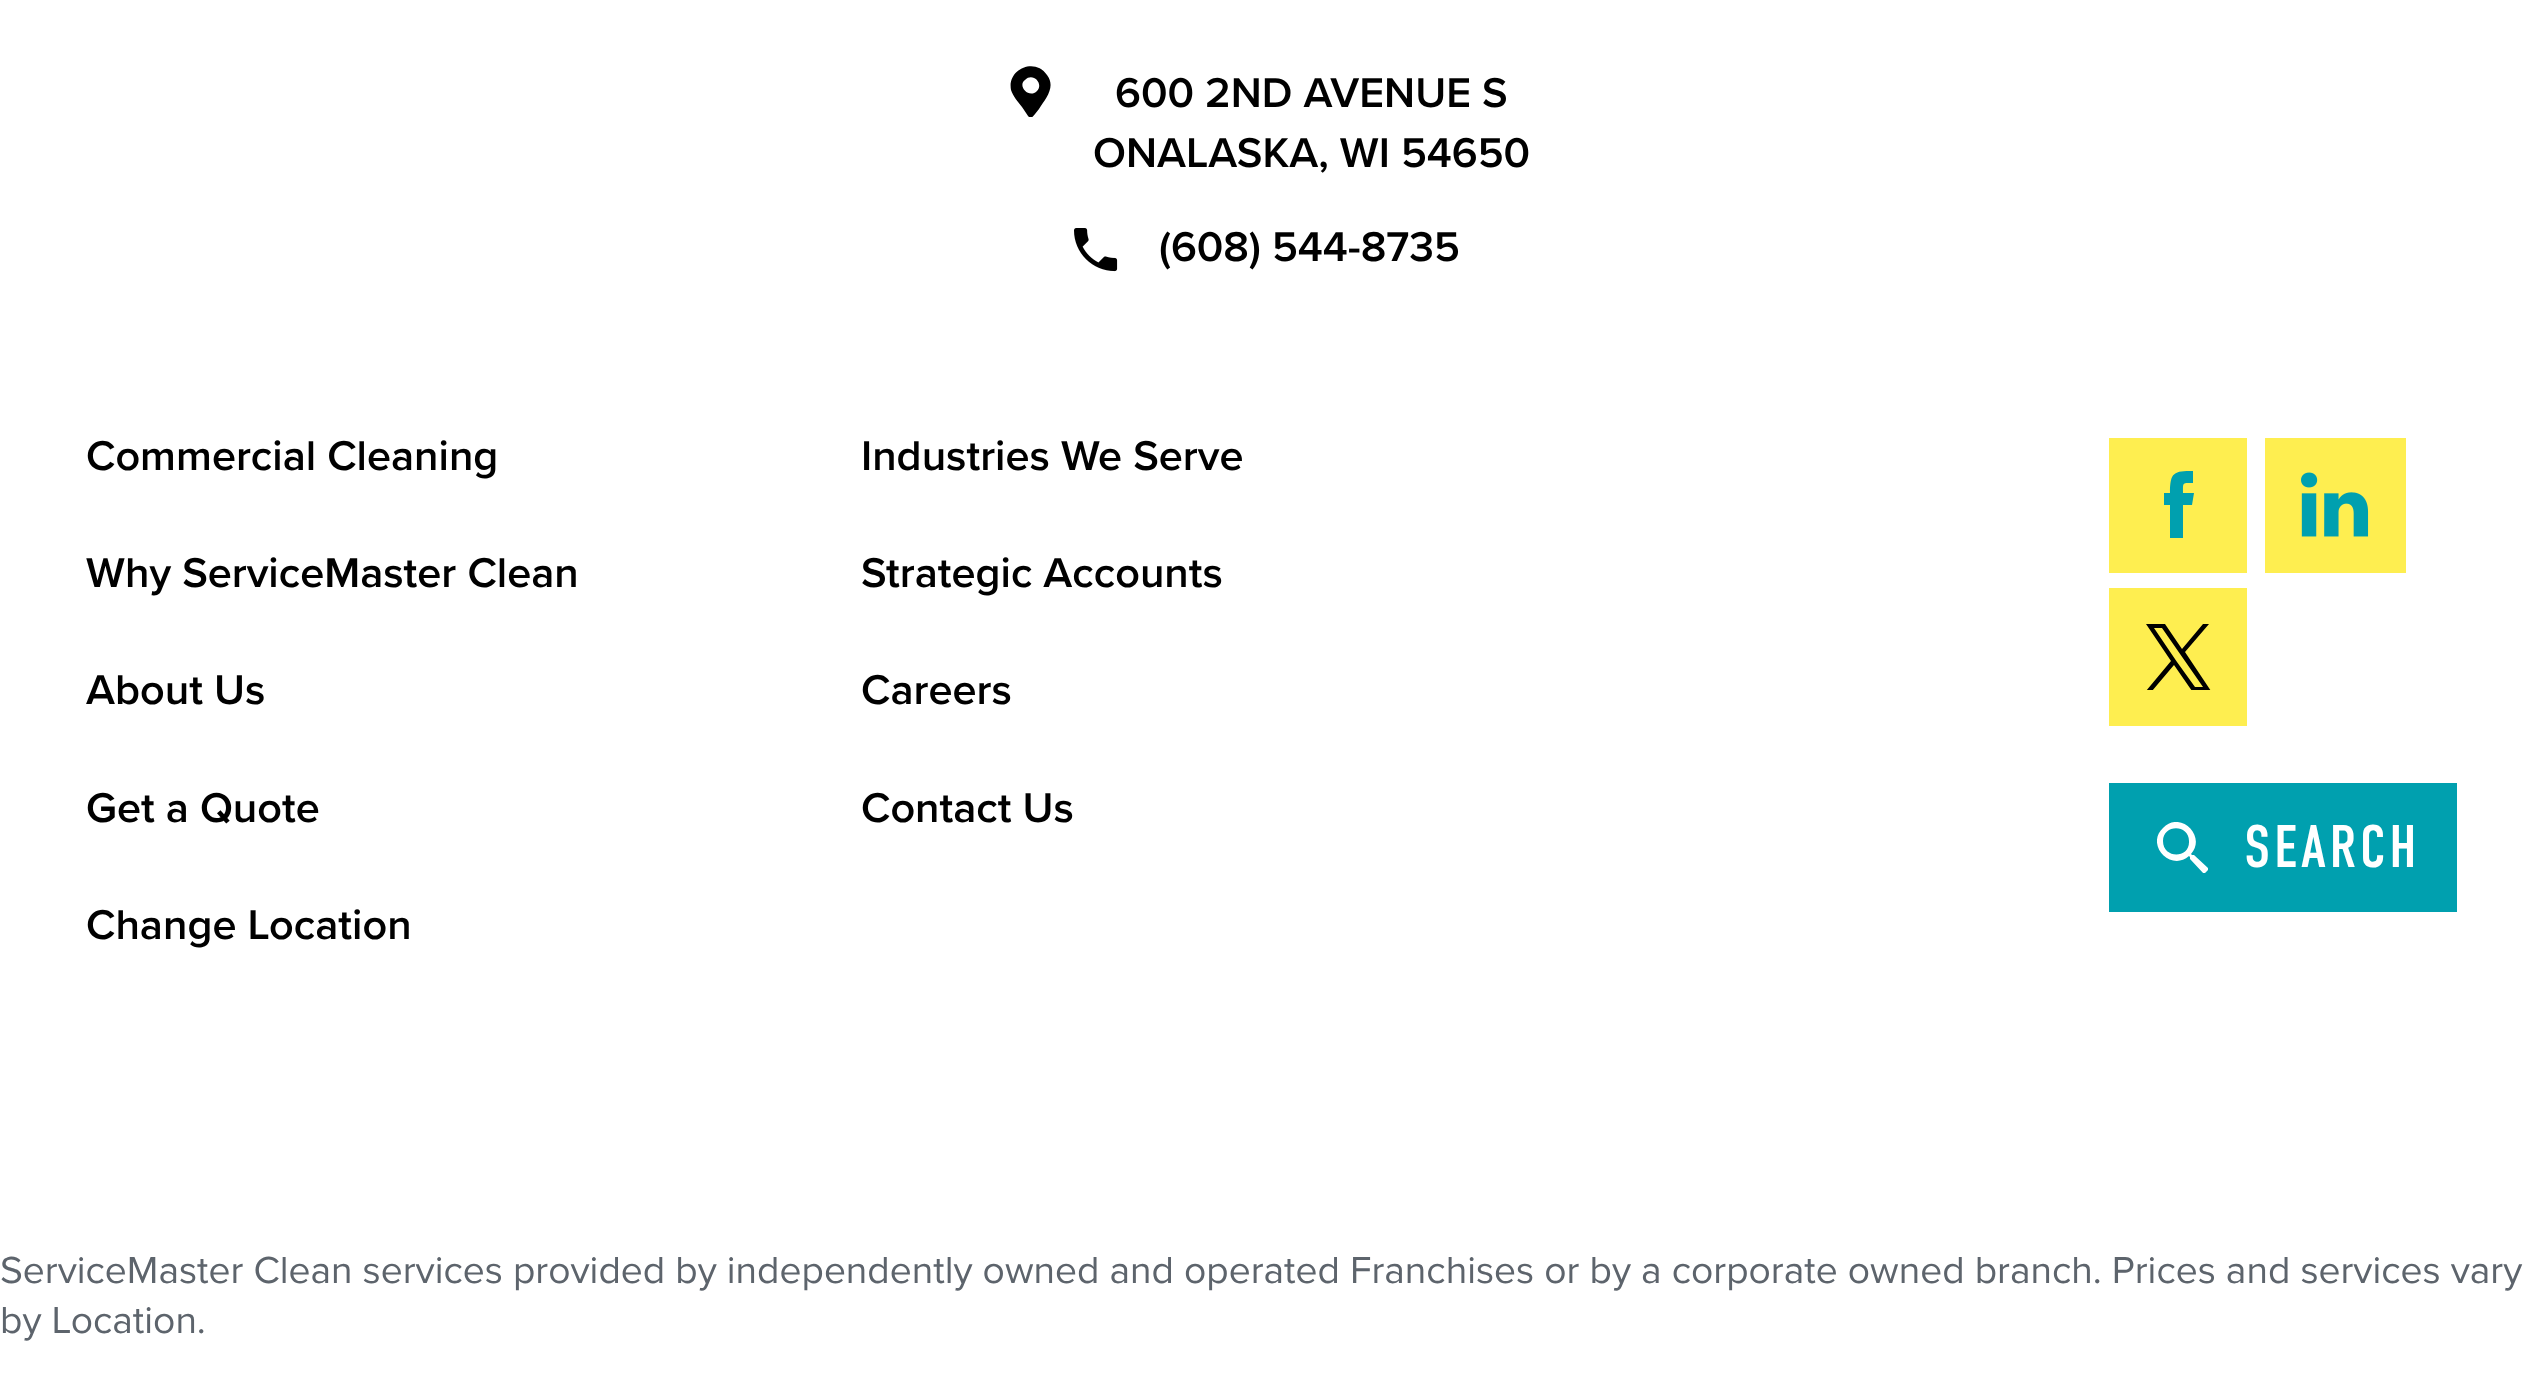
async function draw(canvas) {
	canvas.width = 2533;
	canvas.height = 1393;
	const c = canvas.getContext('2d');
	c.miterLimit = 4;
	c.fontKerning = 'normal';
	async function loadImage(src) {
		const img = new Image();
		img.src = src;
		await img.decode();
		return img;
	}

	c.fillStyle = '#fff';
	c.fillRect(0, 0, 2533, 1393);
	c.save();
	c.beginPath();
	c.rect(1005, 66, 51, 51);
	c.clip();
	c.fillStyle = '#000';
	c.beginPath();
	c.moveTo(1022, 107);
	c.bezierCurveTo(1018, 102, 1013, 96, 1011, 90);
	c.bezierCurveTo(1007, 69, 1035, 57, 1047, 75);
	c.bezierCurveTo(1056, 87, 1046, 98, 1039, 109);
	c.bezierCurveTo(1029, 122, 1031, 120, 1022, 107);
	c.closePath();
	c.moveTo(1037, 91);
	c.bezierCurveTo(1044, 84, 1033, 72, 1025, 80);
	c.bezierCurveTo(1017, 86, 1029, 99, 1037, 91);
	c.closePath();
	c.fill();
	c.restore();
	c.font = '600 43.1px Proxima Nova';
	c.fillStyle = '#000';
	c.fillText('600 2ND AVENUE S', 1115, 107);
	c.fillText('ONALASKA, WI 54650', 1093, 167);
	c.drawImage(await loadImage('img1.png'), 1074, 228, 44, 44);
	for (const [text, x, y] of [
		['(608) 544-8735', 1159, 261],
		['Commercial Cleaning', 86, 470],
		['Industries We Serve', 861, 470],
		['Why ServiceMaster Clean', 86, 587],
		['Strategic Accounts', 861, 587],
		['About Us', 86, 704],
		['Careers', 861, 704],
		['Get a Quote', 86, 822],
		['Contact Us', 861, 822],
		['Change Location', 86, 939],
	]) {
		c.fillText(text, x, y);
	}
	c.fillStyle = '#feee50';
	c.fillRect(2109, 438, 138, 135);
	c.fillStyle = '#00a0af';
	c.beginPath();
	c.moveTo(2194, 493);
	c.lineTo(2192, 505);
	c.lineTo(2183, 505);
	c.lineTo(2183, 538);
	c.lineTo(2170, 538);
	c.lineTo(2170, 505);
	c.lineTo(2164, 505);
	c.lineTo(2164, 493);
	c.lineTo(2170, 493);
	c.bezierCurveTo(2170, 472, 2174, 471, 2193, 471);
	c.lineTo(2193, 483);
	c.bezierCurveTo(2182, 483, 2183, 482, 2183, 493);
	c.closePath();
	c.fill();
	c.fillStyle = '#feee50';
	c.fillRect(2265, 438, 141, 135);
	c.drawImage(await loadImage('img2.png'), 2301, 472, 68, 65);
	c.fillRect(2109, 588, 138, 138);
	c.save();
	c.beginPath();
	c.rect(2145, 624, 66, 66);
	c.clip();
	c.fillStyle = '#000';
	c.beginPath();
	c.moveTo(2185, 652);
	c.lineTo(2209, 624);
	c.lineTo(2203, 624);
	c.lineTo(2182, 649);
	c.lineTo(2165, 624);
	c.lineTo(2146, 624);
	c.lineTo(2171, 661);
	c.lineTo(2146, 691);
	c.lineTo(2152, 691);
	c.lineTo(2174, 665);
	c.lineTo(2192, 691);
	c.lineTo(2211, 691);
	c.closePath();
	c.moveTo(2177, 662);
	c.lineTo(2154, 628);
	c.lineTo(2162, 628);
	c.lineTo(2203, 687);
	c.lineTo(2195, 687);
	c.closePath();
	c.fill();
	c.restore();
	c.fillStyle = '#00a0af';
	c.fillRect(2109, 783, 348, 129);
	c.save();
	c.beginPath();
	c.rect(2157, 822, 51, 51);
	c.clip();
	c.fillStyle = '#fff';
	c.beginPath();
	c.moveTo(2163, 841);
	c.bezierCurveTo(2163, 824, 2189, 824, 2189, 841);
	c.bezierCurveTo(2190, 859, 2163, 859, 2163, 841);
	c.closePath();
	c.moveTo(2192, 855);
	c.lineTo(2191, 854);
	c.bezierCurveTo(2207, 836, 2180, 810, 2163, 828);
	c.bezierCurveTo(2145, 845, 2171, 872, 2189, 856);
	c.lineTo(2190, 857);
	c.lineTo(2190, 859);
	c.lineTo(2204, 874);
	c.lineTo(2209, 869);
	c.lineTo(2194, 855);
	c.closePath();
	c.fill();
	c.restore();
	c.letterSpacing = '3.5px';
	c.font = '60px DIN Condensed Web';
	c.fillStyle = '#fff';
	c.fillText('SEARCH', 2244, 867);
	c.letterSpacing = '0px';
	c.font = '39px Proxima Nova';
	c.fillStyle = '#5d646c';
	c.fillText('ServiceMaster Clean services provided by independently owned and operated Franchises or by a corporate owned branch. Prices and services vary', 0, 1283);
	c.fillText('by Location.', 0, 1333);
}

draw(document.querySelector('canvas'));
